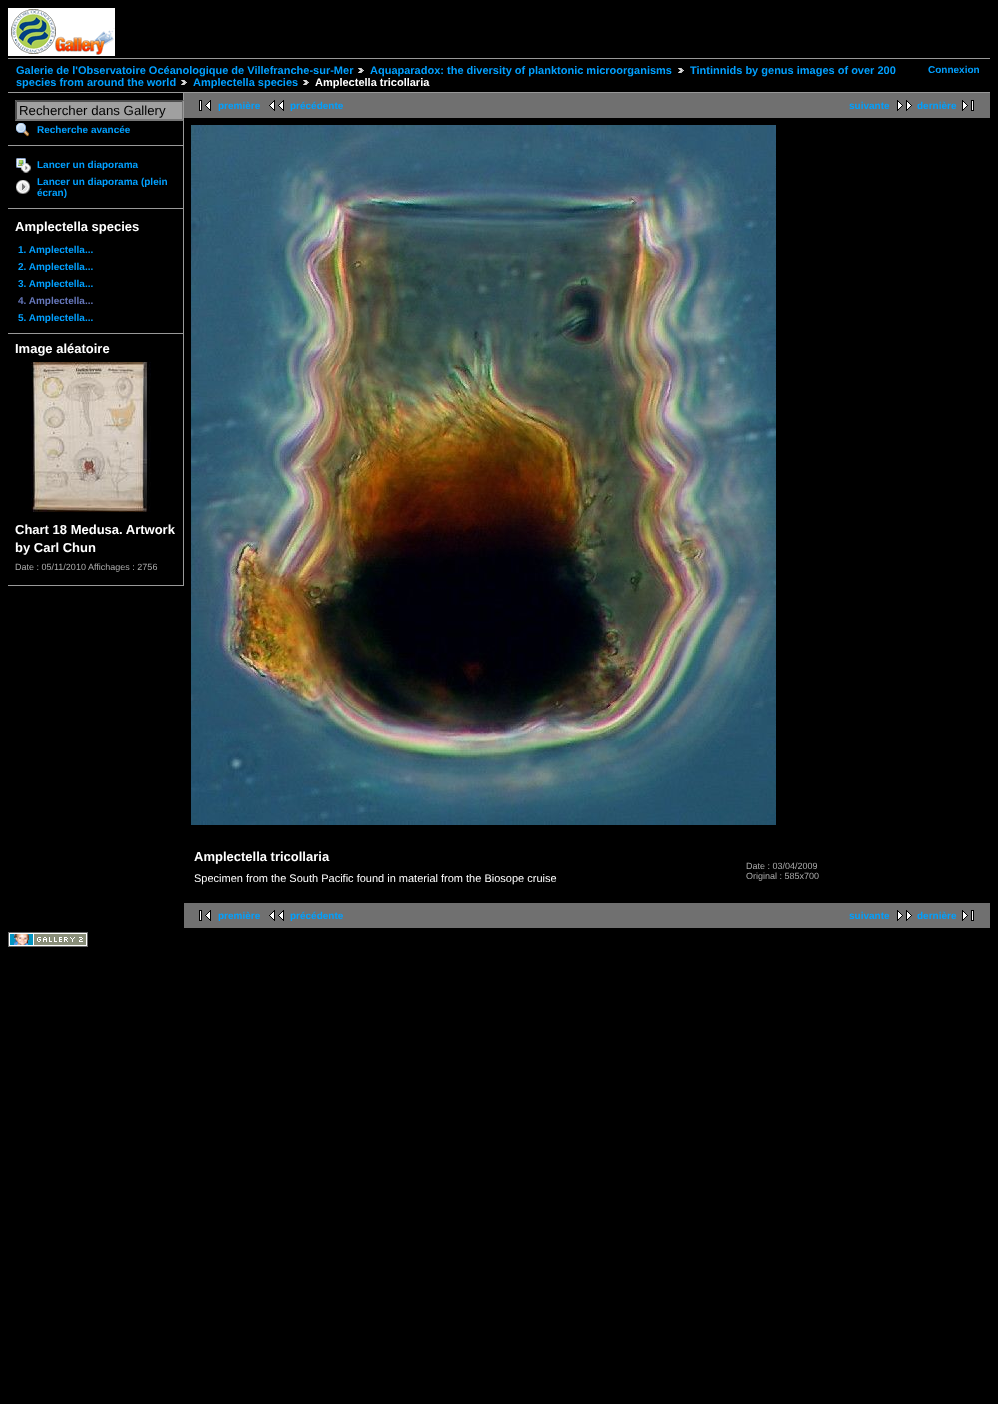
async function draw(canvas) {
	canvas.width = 998;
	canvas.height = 1404;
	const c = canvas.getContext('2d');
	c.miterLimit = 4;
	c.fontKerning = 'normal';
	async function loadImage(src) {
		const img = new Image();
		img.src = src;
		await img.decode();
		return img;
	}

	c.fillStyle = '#000';
	c.fillRect(0, 0, 998, 1404);
	c.drawImage(await loadImage('img1.png'), 8, 8, 107, 48);
	c.fillStyle = '#999';
	c.fillRect(8, 58, 982, 1);
	c.fillRect(8, 92, 982, 1);
	c.font = 'bold 11px Liberation Sans';
	c.fillStyle = '#00a0ff';
	c.fillText('Galerie de l\'Observatoire Océanologique de Villefranche-sur-Mer', 16, 74);
	c.drawImage(await loadImage('img2.png'), 358, 68, 6, 5);
	c.fillText('Aquaparadox: the diversity of planktonic microorganisms', 370, 74);
	c.drawImage(await loadImage('img2.png'), 678, 68, 6, 5);
	c.fillText('Tintinnids by genus images of over 200', 690, 74);
	c.fillText('species from around the world', 16, 86);
	c.drawImage(await loadImage('img2.png'), 181, 80, 6, 5);
	c.fillText('Amplectella species', 193, 86);
	c.drawImage(await loadImage('img2.png'), 303, 80, 6, 5);
	c.fillStyle = '#fff';
	c.fillText('Amplectella tricollaria', 315, 86);
	c.font = 'bold 10px Liberation Sans';
	c.fillStyle = '#00a0ff';
	c.fillText('Connexion', 928, 73);
	for (const [x, y, w, h, color] of [
		[183, 93, 1, 493, '#999'],
		[8, 145, 175, 1, '#999'],
		[15, 100, 168, 21, '#a0a0a0'],
	]) {
		c.fillStyle = color;
		c.fillRect(x, y, w, h);
	}
	c.fillStyle = '#4f4f4f';
	c.beginPath();
	c.moveTo(15, 100);
	c.lineTo(184, 100);
	c.lineTo(182, 102);
	c.lineTo(17, 102);
	c.closePath();
	c.fill();
	c.save();
	c.beginPath();
	c.rect(8, 93, 175, 493);
	c.clip();
	c.fillStyle = '#767676';
	c.beginPath();
	c.moveTo(184, 100);
	c.lineTo(184, 121);
	c.lineTo(182, 119);
	c.lineTo(182, 102);
	c.closePath();
	c.fill();
	c.restore();
	c.fillStyle = '#767676';
	c.beginPath();
	c.moveTo(184, 121);
	c.lineTo(15, 121);
	c.lineTo(17, 119);
	c.lineTo(182, 119);
	c.closePath();
	c.fill();
	c.fillStyle = '#4f4f4f';
	c.beginPath();
	c.moveTo(15, 121);
	c.lineTo(15, 100);
	c.lineTo(17, 102);
	c.lineTo(17, 119);
	c.closePath();
	c.fill();
	c.font = '13.25px Liberation Sans';
	c.fillStyle = '#000';
	c.fillText('Rechercher dans Gallery', 19, 115);
	c.drawImage(await loadImage('img3.png'), 16, 123, 13, 14);
	c.font = 'bold 10px Liberation Sans';
	c.fillStyle = '#00a0ff';
	c.fillText('Recherche avancée', 37, 133);
	c.fillStyle = '#999';
	c.fillRect(8, 208, 175, 1);
	c.drawImage(await loadImage('img4.png'), 16, 158, 15, 15);
	c.fillStyle = '#00a0ff';
	c.fillText('Lancer un diaporama', 37, 168);
	c.drawImage(await loadImage('img5.png'), 16, 180, 14, 14);
	c.fillText('Lancer un diaporama (plein', 37, 185);
	c.fillText('écran)', 37, 196);
	c.fillStyle = '#999';
	c.fillRect(8, 333, 175, 1);
	c.font = 'bold 13px Liberation Sans';
	c.fillStyle = '#fff';
	c.fillText('Amplectella species', 15, 231);
	c.font = 'bold 10px Liberation Sans';
	c.fillStyle = '#00a0ff';
	for (const [text, x, y] of [
		['1. Amplectella...', 18, 253],
		['2. Amplectella...', 18, 270],
		['3. Amplectella...', 18, 287],
	]) {
		c.fillText(text, x, y);
	}
	c.fillStyle = '#67b';
	c.fillText('4. Amplectella...', 18, 304);
	c.fillStyle = '#00a0ff';
	c.fillText('5. Amplectella...', 18, 321);
	c.fillStyle = '#999';
	c.fillRect(8, 585, 175, 1);
	c.font = 'bold 13px Liberation Sans';
	c.fillStyle = '#fff';
	c.fillText('Image aléatoire', 15, 353);
	c.drawImage(await loadImage('img6.png'), 31, 362, 120, 150);
	c.fillText('Chart 18 Medusa. Artwork', 15, 534);
	c.fillText('by Carl Chun', 15, 552);
	c.font = '9px Liberation Sans';
	c.fillStyle = '#aaa';
	c.fillText('Date : 05/11/2010', 15, 570);
	c.fillText('Affichages : 2756', 88, 570);
	c.fillStyle = '#707070';
	c.fillRect(184, 93, 806, 25);
	c.drawImage(await loadImage('img7.png'), 199, 100, 12, 11);
	c.font = 'bold 10px Liberation Sans';
	c.fillStyle = '#00a0ff';
	c.fillText('première', 218, 109);
	c.drawImage(await loadImage('img8.png'), 269, 100, 15, 11);
	c.fillText('précédente', 290, 109);
	c.fillText('suivante', 849, 109);
	c.drawImage(await loadImage('img9.png'), 897, 100, 15, 11);
	c.fillText('dernière', 917, 109);
	c.drawImage(await loadImage('img10.png'), 962, 100, 12, 11);
	c.drawImage(await loadImage('img11.png'), 191, 125, 585, 700);
	c.font = 'bold 13px Liberation Sans';
	c.fillStyle = '#fff';
	c.fillText('Amplectella tricollaria', 194, 861);
	c.font = '11px Liberation Sans';
	c.fillText('Specimen from the South Pacific found in material from the Biosope cruise', 194, 882);
	c.font = '9px Liberation Sans';
	c.fillStyle = '#aaa';
	c.fillText('Date : 03/04/2009', 746, 869);
	c.fillText('Original : 585x700', 746, 879);
	c.fillStyle = '#707070';
	c.fillRect(184, 903, 806, 25);
	c.drawImage(await loadImage('img7.png'), 199, 910, 12, 11);
	c.font = 'bold 10px Liberation Sans';
	c.fillStyle = '#00a0ff';
	c.fillText('première', 218, 919);
	c.drawImage(await loadImage('img8.png'), 269, 910, 15, 11);
	c.fillText('précédente', 290, 919);
	c.fillText('suivante', 849, 919);
	c.drawImage(await loadImage('img9.png'), 897, 910, 15, 11);
	c.fillText('dernière', 917, 919);
	c.drawImage(await loadImage('img10.png'), 962, 910, 12, 11);
	c.drawImage(await loadImage('img12.png'), 8, 932, 80, 15);
}

draw(document.querySelector('canvas'));
